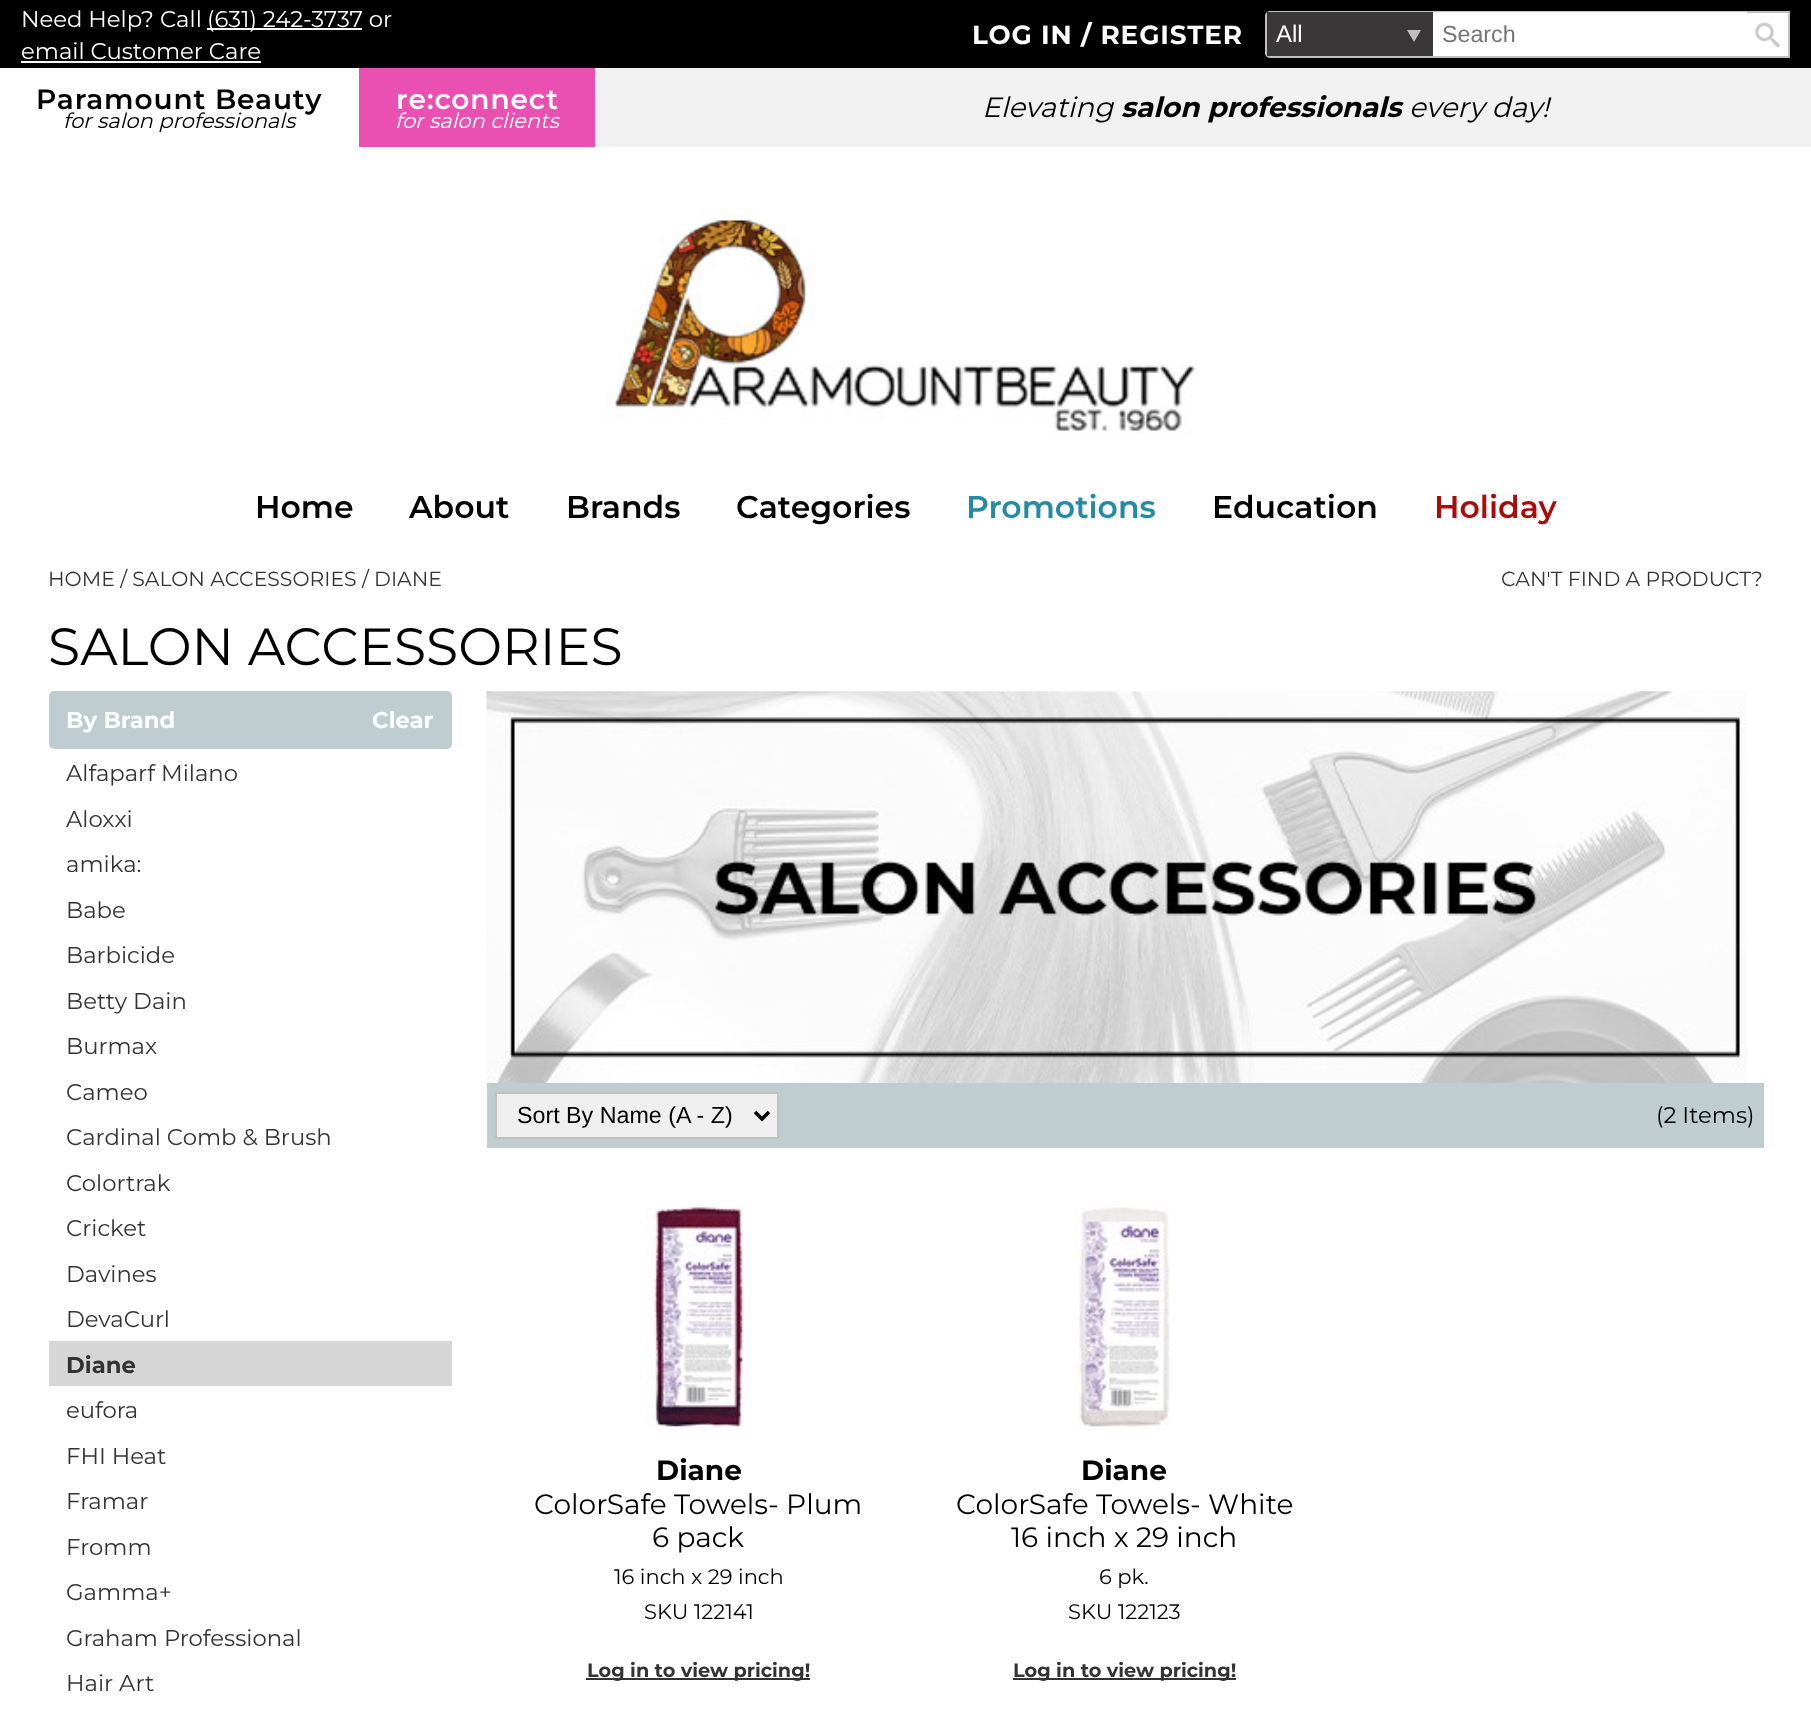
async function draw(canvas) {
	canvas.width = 1811;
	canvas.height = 1731;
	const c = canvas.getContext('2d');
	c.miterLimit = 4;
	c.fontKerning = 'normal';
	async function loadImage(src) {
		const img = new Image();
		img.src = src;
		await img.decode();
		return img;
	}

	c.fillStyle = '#fff';
	c.fillRect(0, 0, 1811, 1731);
	c.fillStyle = '#000';
	c.fillRect(0, 0, 1811, 68);
	c.font = '100 22.75px Montserrat';
	c.fillStyle = '#fff';
	c.fillText('Need Help? Call', 21, 27);
	c.fillRect(207, 28, 155, 2);
	c.fillText('(631) 242-3737 or', 207, 27);
	c.fillText('email Customer Care', 21, 59);
	c.fillRect(21, 61, 240, 2);
	c.letterSpacing = '0.9px';
	c.font = '100 26.25px "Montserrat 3"';
	c.fillText('LOG IN / REGISTER', 972, 44);
	c.beginPath();
	c.roundRect(1266, 12, 523, 45, [4, 0, 0, 4]);
	c.fill();
	c.strokeStyle = '#c0c0c0';
	c.lineWidth = 2;
	c.stroke();
	c.fillStyle = '#393738';
	c.fillRect(1267, 12, 166, 44);
	c.letterSpacing = '0px';
	c.font = '24px Liberation Sans';
	c.fillStyle = '#fff';
	c.fillText('All', 1276, 42);
	c.fillStyle = '#c0c0c0';
	c.beginPath();
	c.moveTo(1407, 30);
	c.lineTo(1421, 30);
	c.lineTo(1414, 42);
	c.closePath();
	c.fill();
	c.fillStyle = '#fff';
	c.fillRect(1433, 12, 314, 1);
	c.font = '23.25px Liberation Sans';
	c.fillStyle = '#757575';
	c.fillText('Search', 1442, 42);
	c.drawImage(await loadImage('img1.png'), 1755, 22, 25, 26);
	c.fillStyle = '#f1f1f1';
	c.fillRect(595, 68, 1216, 79);
	c.letterSpacing = '0.9px';
	c.font = '100 28px "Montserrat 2"';
	c.fillStyle = '#000';
	c.fillText('Paramount Beauty', 36, 109);
	c.letterSpacing = '0px';
	c.font = 'italic 100 21px Montserrat';
	c.fillText('for salon professionals', 63, 128);
	c.fillStyle = '#ea50b2';
	c.fillRect(359, 68, 236, 79);
	c.letterSpacing = '0.9px';
	c.font = '100 28px "Montserrat 2"';
	c.fillStyle = '#fff';
	c.fillText('re:connect', 396, 109);
	c.letterSpacing = '0px';
	c.font = 'italic 100 21px Montserrat';
	c.fillText('for salon clients', 395, 128);
	c.font = 'italic 100 28px Montserrat';
	c.fillStyle = '#000';
	c.fillText('Elevating', 982, 117);
	c.font = 'italic 100 28px "Montserrat 2"';
	c.fillText('salon professionals', 1121, 117);
	c.font = 'italic 100 28px Montserrat';
	c.fillText('every day!', 1409, 117);
	c.drawImage(await loadImage('img2.png'), 605, 210, 592, 224);
	c.font = '100 31.5px "Montserrat 2"';
	for (const [text, x, y] of [
		['Home', 255, 518],
		['About', 409, 518],
		['Brands', 566, 518],
		['Categories', 736, 518],
	]) {
		c.fillText(text, x, y);
	}
	c.fillStyle = '#238ba3';
	c.fillText('Promotions', 966, 518);
	c.fillStyle = '#000';
	c.fillText('Education', 1212, 518);
	c.fillStyle = '#aa0c0c';
	c.fillText('Holiday', 1434, 518);
	c.font = '100 20.4px Montserrat';
	c.fillStyle = '#333';
	c.fillText('HOME / SALON ACCESSORIES / DIANE', 48, 586);
	c.fillText('CAN\'T FIND A PRODUCT?', 1501, 586);
	c.font = '100 52.25px Montserrat';
	c.fillStyle = '#000';
	c.fillText('SALON ACCESSORIES', 48, 665);
	c.fillStyle = '#bfcdd0';
	c.beginPath();
	c.roundRect(49, 691, 403, 58, 5);
	c.fill();
	c.font = '100 22.75px "Montserrat 3"';
	c.fillStyle = '#fff';
	c.fillText('By Brand', 66, 728);
	c.fillText('Clear', 372, 728);
	c.font = '100 22.75px Montserrat';
	c.fillStyle = '#333';
	for (const [text, x, y] of [
		['Alfaparf Milano', 66, 781],
		['Aloxxi', 66, 827],
		['amika:', 66, 872],
		['Babe', 66, 918],
		['Barbicide', 66, 963],
		['Betty Dain', 66, 1009],
		['Burmax', 66, 1054],
		['Cameo', 66, 1100],
		['Cardinal Comb & Brush', 66, 1145],
		['Colortrak', 66, 1191],
		['Cricket', 66, 1236],
		['Davines', 66, 1282],
		['DevaCurl', 66, 1327],
	]) {
		c.fillText(text, x, y);
	}
	c.fillStyle = '#d6d6d6';
	c.fillRect(49, 1341, 403, 45);
	c.font = '100 22.75px "Montserrat 3"';
	c.fillStyle = '#333';
	c.fillText('Diane', 66, 1373);
	c.font = '100 22.75px Montserrat';
	for (const [text, x, y] of [
		['eufora', 66, 1418],
		['FHI Heat', 66, 1464],
		['Framar', 66, 1509],
		['Fromm', 66, 1555],
		['Gamma+', 66, 1600],
		['Graham Professional', 66, 1646],
		['Hair Art', 66, 1691],
	]) {
		c.fillText(text, x, y);
	}
	c.drawImage(await loadImage('img3.png'), 486, 691, 1261, 393);
	c.fillStyle = '#bfcdd0';
	c.fillRect(487, 1083, 1277, 65);
	c.fillStyle = '#efefef';
	c.beginPath();
	c.roundRect(496, 1093, 282, 45, 1);
	c.fill();
	c.stroke();
	c.beginPath();
	c.moveTo(755, 1112);
	c.lineTo(762, 1119);
	c.lineTo(769, 1112);
	c.strokeStyle = '#000';
	c.lineWidth = 3.5;
	c.stroke();
	c.font = '23.25px Liberation Sans';
	c.fillStyle = '#000';
	c.fillText('Sort By Name (A - Z)', 517, 1123);
	c.font = '100 22.75px Montserrat';
	c.fillText('(2 Items)', 1656, 1123);
	c.drawImage(await loadImage('img4.png'), 645, 1207, 107, 220);
	c.font = '100 28px "Montserrat 3"';
	c.fillText('Diane', 656, 1480);
	c.font = '100 28px Montserrat';
	c.fillText('ColorSafe Towels- Plum', 534, 1514);
	c.fillText('6 pack', 652, 1547);
	c.font = '100 21px Montserrat';
	c.fillText('16 inch x 29 inch', 614, 1584);
	c.fillText('SKU 122141', 644, 1619);
	c.fillStyle = '#333';
	c.fillRect(586, 1678, 224, 2);
	c.font = '100 19.25px "Montserrat 3"';
	c.fillText('Log in to view pricing!', 587, 1677);
	c.drawImage(await loadImage('img5.png'), 1074, 1207, 101, 220);
	c.font = '100 28px "Montserrat 3"';
	c.fillStyle = '#000';
	c.fillText('Diane', 1081, 1480);
	c.font = '100 28px Montserrat';
	c.fillText('ColorSafe Towels- White', 956, 1514);
	c.fillText('16 inch x 29 inch', 1011, 1547);
	c.font = '100 21px Montserrat';
	c.fillText('6 pk.', 1099, 1584);
	c.fillText('SKU 122123', 1068, 1619);
	c.fillStyle = '#333';
	c.fillRect(1013, 1678, 223, 2);
	c.font = '100 19.25px "Montserrat 3"';
	c.fillText('Log in to view pricing!', 1013, 1677);
}

draw(document.querySelector('canvas'));
